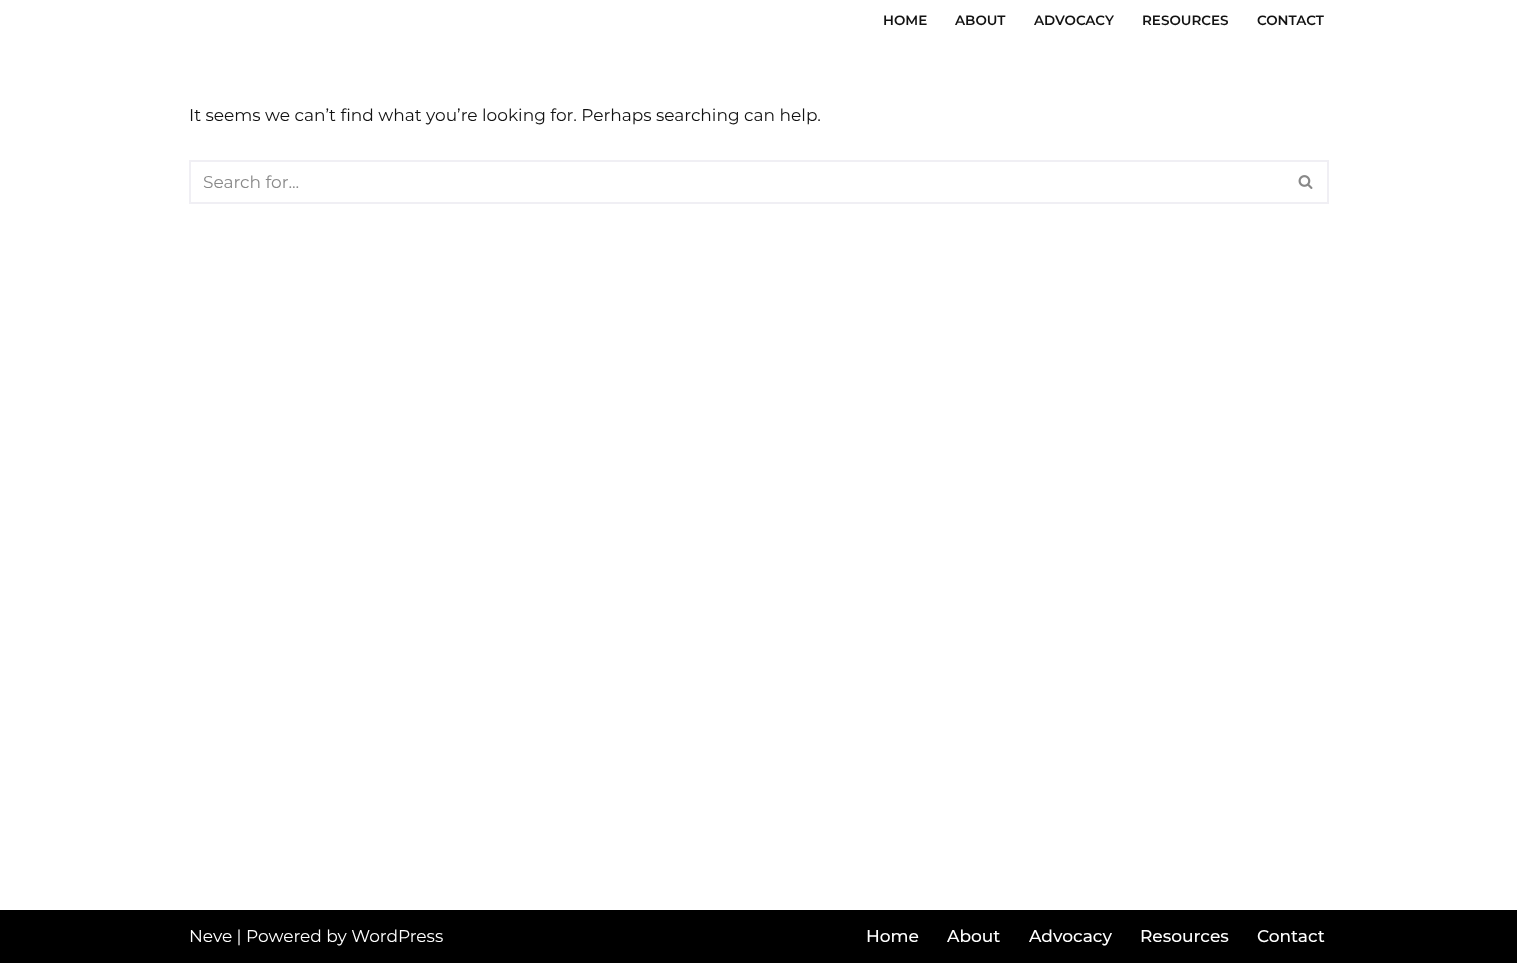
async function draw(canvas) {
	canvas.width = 1517;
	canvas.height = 963;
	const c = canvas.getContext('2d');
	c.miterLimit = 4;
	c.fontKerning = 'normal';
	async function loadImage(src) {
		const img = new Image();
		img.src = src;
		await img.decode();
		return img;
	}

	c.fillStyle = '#fff';
	c.fillRect(0, 0, 1517, 963);
	c.font = '600 13.5px Montserrat';
	c.fillStyle = '#121212';
	for (const [text, x, y] of [
		['HOME', 883, 25],
		['ABOUT', 955, 25],
		['ADVOCACY', 1034, 25],
		['RESOURCES', 1142, 25],
		['CONTACT', 1257, 25],
	]) {
		c.fillText(text, x, y);
	}
	c.font = '17px Montserrat';
	c.fillText('It seems we can’t find what you’re looking for. Perhaps searching can help.', 189, 121);
	for (const [x, y, w, h, color] of [
		[189, 160, 1140, 2, '#f0eff4'],
		[189, 202, 1095, 2, '#f0eff4'],
		[189, 160, 2, 44, '#f0eff4'],
	]) {
		c.fillStyle = color;
		c.fillRect(x, y, w, h);
	}
	c.fillStyle = '#898989';
	c.fillText('Search for...', 203, 188);
	c.fillStyle = '#f0eff4';
	c.fillRect(1327, 160, 2, 44);
	c.fillRect(1284, 202, 45, 2);
	c.drawImage(await loadImage('img1.png'), 1298, 175, 15, 14);
	c.fillStyle = '#000';
	c.fillRect(0, 910, 1517, 53);
	c.fillStyle = '#fff';
	c.fillText('Neve | Powered by WordPress', 189, 942);
	c.font = '500 17px Montserrat';
	for (const [text, x, y] of [
		['Home', 866, 942],
		['About', 947, 942],
		['Advocacy', 1029, 942],
		['Resources', 1140, 942],
		['Contact', 1257, 942],
	]) {
		c.fillText(text, x, y);
	}
}

draw(document.querySelector('canvas'));
